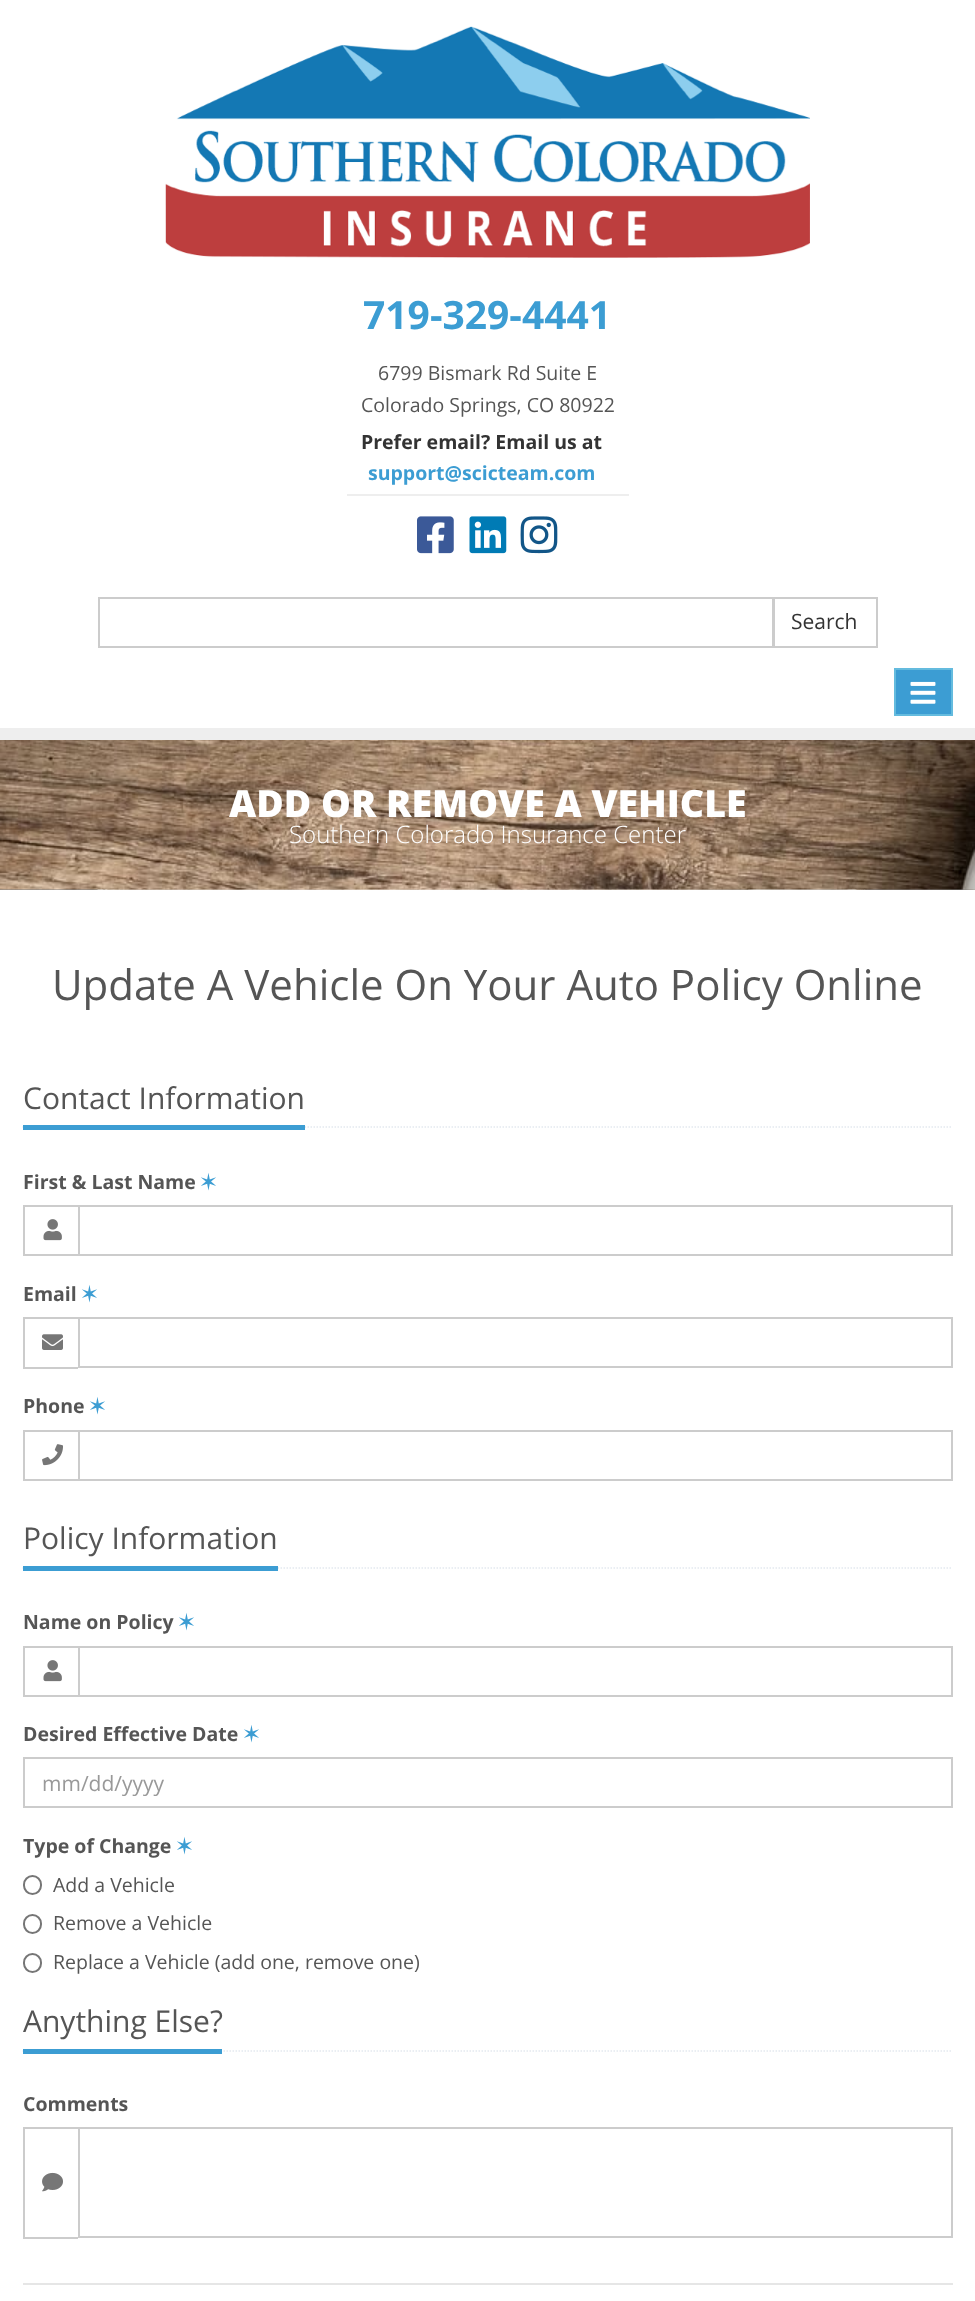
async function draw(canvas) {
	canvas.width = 975;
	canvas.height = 2301;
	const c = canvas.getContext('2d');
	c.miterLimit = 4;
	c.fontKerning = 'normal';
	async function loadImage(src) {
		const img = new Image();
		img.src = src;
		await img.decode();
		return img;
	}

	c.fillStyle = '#fff';
	c.fillRect(0, 0, 975, 2301);
	c.fillStyle = '#eee';
	c.fillRect(0, 728, 975, 12);
	c.drawImage(await loadImage('img1.png'), 165, 26, 645, 232);
	c.fillRect(347, 494, 282, 2);
	c.font = 'bold 39px Open Sans';
	c.fillStyle = '#3c9dd3';
	c.fillText('719-329-4441', 363, 329);
	c.font = '19.5px Open Sans';
	c.fillStyle = '#555';
	c.fillText('6799 Bismark Rd Suite E', 378, 380);
	c.fillText('Colorado Springs, CO 80922', 361, 412);
	c.font = 'bold 19.5px Open Sans';
	c.fillStyle = '#333';
	c.fillText('Prefer email? Email us at', 361, 449);
	c.fillStyle = '#3c9dd3';
	c.fillText('support@scicteam.com', 368, 480);
	c.drawImage(await loadImage('img2.png'), 417, 516, 37, 38);
	c.drawImage(await loadImage('img3.png'), 469, 516, 38, 38);
	c.drawImage(await loadImage('img4.png'), 520, 516, 38, 38);
	c.strokeStyle = '#ccc';
	c.lineWidth = 2;
	c.strokeRect(99, 598, 674, 49);
	c.strokeRect(774, 598, 103, 49);
	c.font = '21px Open Sans';
	c.fillStyle = '#333';
	c.fillText('Search', 791, 629);
	c.fillStyle = '#3c9dd3';
	c.beginPath();
	c.rect(895, 669, 57, 46);
	c.fill();
	c.strokeStyle = '#64bbde';
	c.stroke();
	c.drawImage(await loadImage('img5.png'), 910, 681, 26, 23);
	c.drawImage(await loadImage('img6.png'), 0, 740, 975, 150);
	c.font = '800 37.5px Open Sans';
	c.fillStyle = '#fff';
	c.fillText('ADD OR REMOVE A VEHICLE', 229, 817);
	c.font = '300 24px Open Sans';
	c.fillText('Southern Colorado Insurance Center', 289, 843);
	c.font = '42px Open Sans';
	c.fillStyle = '#555';
	c.fillText('Update A Vehicle On Your Auto Policy Online', 52, 1000);
	c.beginPath();
	c.moveTo(22.5, 1127);
	c.lineTo(952.5, 1127);
	c.strokeStyle = '#e4e9f0';
	c.lineWidth = 1.5;
	c.setLineDash([1.5, 1.5]);
	c.stroke();
	c.fillStyle = '#3c9dd3';
	c.fillRect(23, 1125, 282, 5);
	c.font = '30px Open Sans';
	c.fillStyle = '#555';
	c.fillText('Contact Information', 23, 1109);
	c.font = 'bold 19.5px Open Sans';
	c.fillText('First & Last Name', 23, 1189);
	c.font = 'bold 19.5px DejaVu Sans';
	c.fillStyle = '#3c9dd3';
	c.fillText('✶', 200, 1189);
	for (const [x, y, w, h, color] of [
		[23, 1205, 55, 2, '#ccc'],
		[23, 1254, 55, 2, '#ccc'],
		[23, 1205, 2, 51, '#ccc'],
	]) {
		c.fillStyle = color;
		c.fillRect(x, y, w, h);
	}
	c.drawImage(await loadImage('img7.png'), 43, 1219, 19, 22);
	c.strokeStyle = '#ccc';
	c.lineWidth = 2;
	c.setLineDash([]);
	c.strokeRect(79, 1206, 873, 49);
	c.font = 'bold 19.5px Open Sans';
	c.fillStyle = '#555';
	c.fillText('Email', 23, 1301);
	c.font = 'bold 19.5px DejaVu Sans';
	c.fillStyle = '#3c9dd3';
	c.fillText('✶', 81, 1301);
	for (const [x, y, w, h, color] of [
		[23, 1317, 55, 2, '#ccc'],
		[23, 1367, 55, 2, '#ccc'],
		[23, 1317, 2, 51, '#ccc'],
	]) {
		c.fillStyle = color;
		c.fillRect(x, y, w, h);
	}
	c.drawImage(await loadImage('img8.png'), 42, 1334, 21, 16);
	c.strokeRect(79, 1318, 873, 49);
	c.font = 'bold 19.5px Open Sans';
	c.fillStyle = '#555';
	c.fillText('Phone', 23, 1413);
	c.font = 'bold 19.5px DejaVu Sans';
	c.fillStyle = '#3c9dd3';
	c.fillText('✶', 89, 1413);
	for (const [x, y, w, h, color] of [
		[23, 1430, 55, 2, '#ccc'],
		[23, 1479, 55, 2, '#ccc'],
		[23, 1430, 2, 51, '#ccc'],
	]) {
		c.fillStyle = color;
		c.fillRect(x, y, w, h);
	}
	c.drawImage(await loadImage('img9.png'), 42, 1444, 21, 22);
	c.strokeRect(79, 1431, 873, 49);
	c.beginPath();
	c.moveTo(22.5, 1568);
	c.lineTo(952.5, 1568);
	c.strokeStyle = '#e4e9f0';
	c.lineWidth = 1.5;
	c.setLineDash([1.5, 1.5]);
	c.stroke();
	c.fillStyle = '#3c9dd3';
	c.fillRect(23, 1566, 255, 5);
	c.font = '30px Open Sans';
	c.fillStyle = '#555';
	c.fillText('Policy Information', 23, 1549);
	c.font = 'bold 19.5px Open Sans';
	c.fillText('Name on Policy', 23, 1629);
	c.font = 'bold 19.5px DejaVu Sans';
	c.fillStyle = '#3c9dd3';
	c.fillText('✶', 178, 1629);
	for (const [x, y, w, h, color] of [
		[23, 1646, 55, 2, '#ccc'],
		[23, 1695, 55, 2, '#ccc'],
		[23, 1646, 2, 51, '#ccc'],
	]) {
		c.fillStyle = color;
		c.fillRect(x, y, w, h);
	}
	c.drawImage(await loadImage('img7.png'), 43, 1660, 19, 22);
	c.strokeStyle = '#ccc';
	c.lineWidth = 2;
	c.setLineDash([]);
	c.strokeRect(79, 1647, 873, 49);
	c.font = 'bold 19.5px Open Sans';
	c.fillStyle = '#555';
	c.fillText('Desired Effective Date', 23, 1741);
	c.font = 'bold 19.5px DejaVu Sans';
	c.fillStyle = '#3c9dd3';
	c.fillText('✶', 243, 1741);
	c.strokeRect(24, 1758, 928, 49);
	c.font = '21px Open Sans';
	c.fillStyle = '#999';
	c.fillText('mm/dd/yyyy', 42, 1791);
	c.font = 'bold 19.5px Open Sans';
	c.fillStyle = '#555';
	c.fillText('Type of Change', 23, 1853);
	c.font = 'bold 19.5px DejaVu Sans';
	c.fillStyle = '#3c9dd3';
	c.fillText('✶', 176, 1853);
	c.beginPath();
	c.roundRect(24, 1876, 17, 18, 8.5);
	c.strokeStyle = '#767676';
	c.stroke();
	c.font = '19.5px Open Sans';
	c.fillStyle = '#555';
	c.fillText('Add a Vehicle', 53, 1892);
	c.beginPath();
	c.roundRect(24, 1915, 17, 18, 8.5);
	c.stroke();
	c.fillText('Remove a Vehicle', 53, 1930);
	c.beginPath();
	c.roundRect(24, 1954, 17, 18, 8.5);
	c.stroke();
	c.fillText('Replace a Vehicle (add one, remove one)', 53, 1969);
	c.beginPath();
	c.moveTo(22.5, 2051);
	c.lineTo(952.5, 2051);
	c.strokeStyle = '#e4e9f0';
	c.lineWidth = 1.5;
	c.setLineDash([1.5, 1.5]);
	c.stroke();
	c.fillStyle = '#3c9dd3';
	c.fillRect(23, 2049, 199, 5);
	c.font = '30px Open Sans';
	c.fillStyle = '#555';
	c.fillText('Anything Else?', 23, 2032);
	c.font = 'bold 19.5px Open Sans';
	c.fillText('Comments', 23, 2111);
	for (const [x, y, w, h, color] of [
		[23, 2127, 55, 2, '#ccc'],
		[23, 2237, 55, 2, '#ccc'],
		[23, 2127, 2, 111, '#ccc'],
	]) {
		c.fillStyle = color;
		c.fillRect(x, y, w, h);
	}
	c.drawImage(await loadImage('img10.png'), 42, 2172, 21, 20);
	c.strokeStyle = '#ccc';
	c.lineWidth = 2;
	c.setLineDash([]);
	c.strokeRect(79, 2128, 873, 109);
	c.fillStyle = '#e6e6e6';
	c.fillRect(23, 2283, 930, 2);
}

draw(document.querySelector('canvas'));
